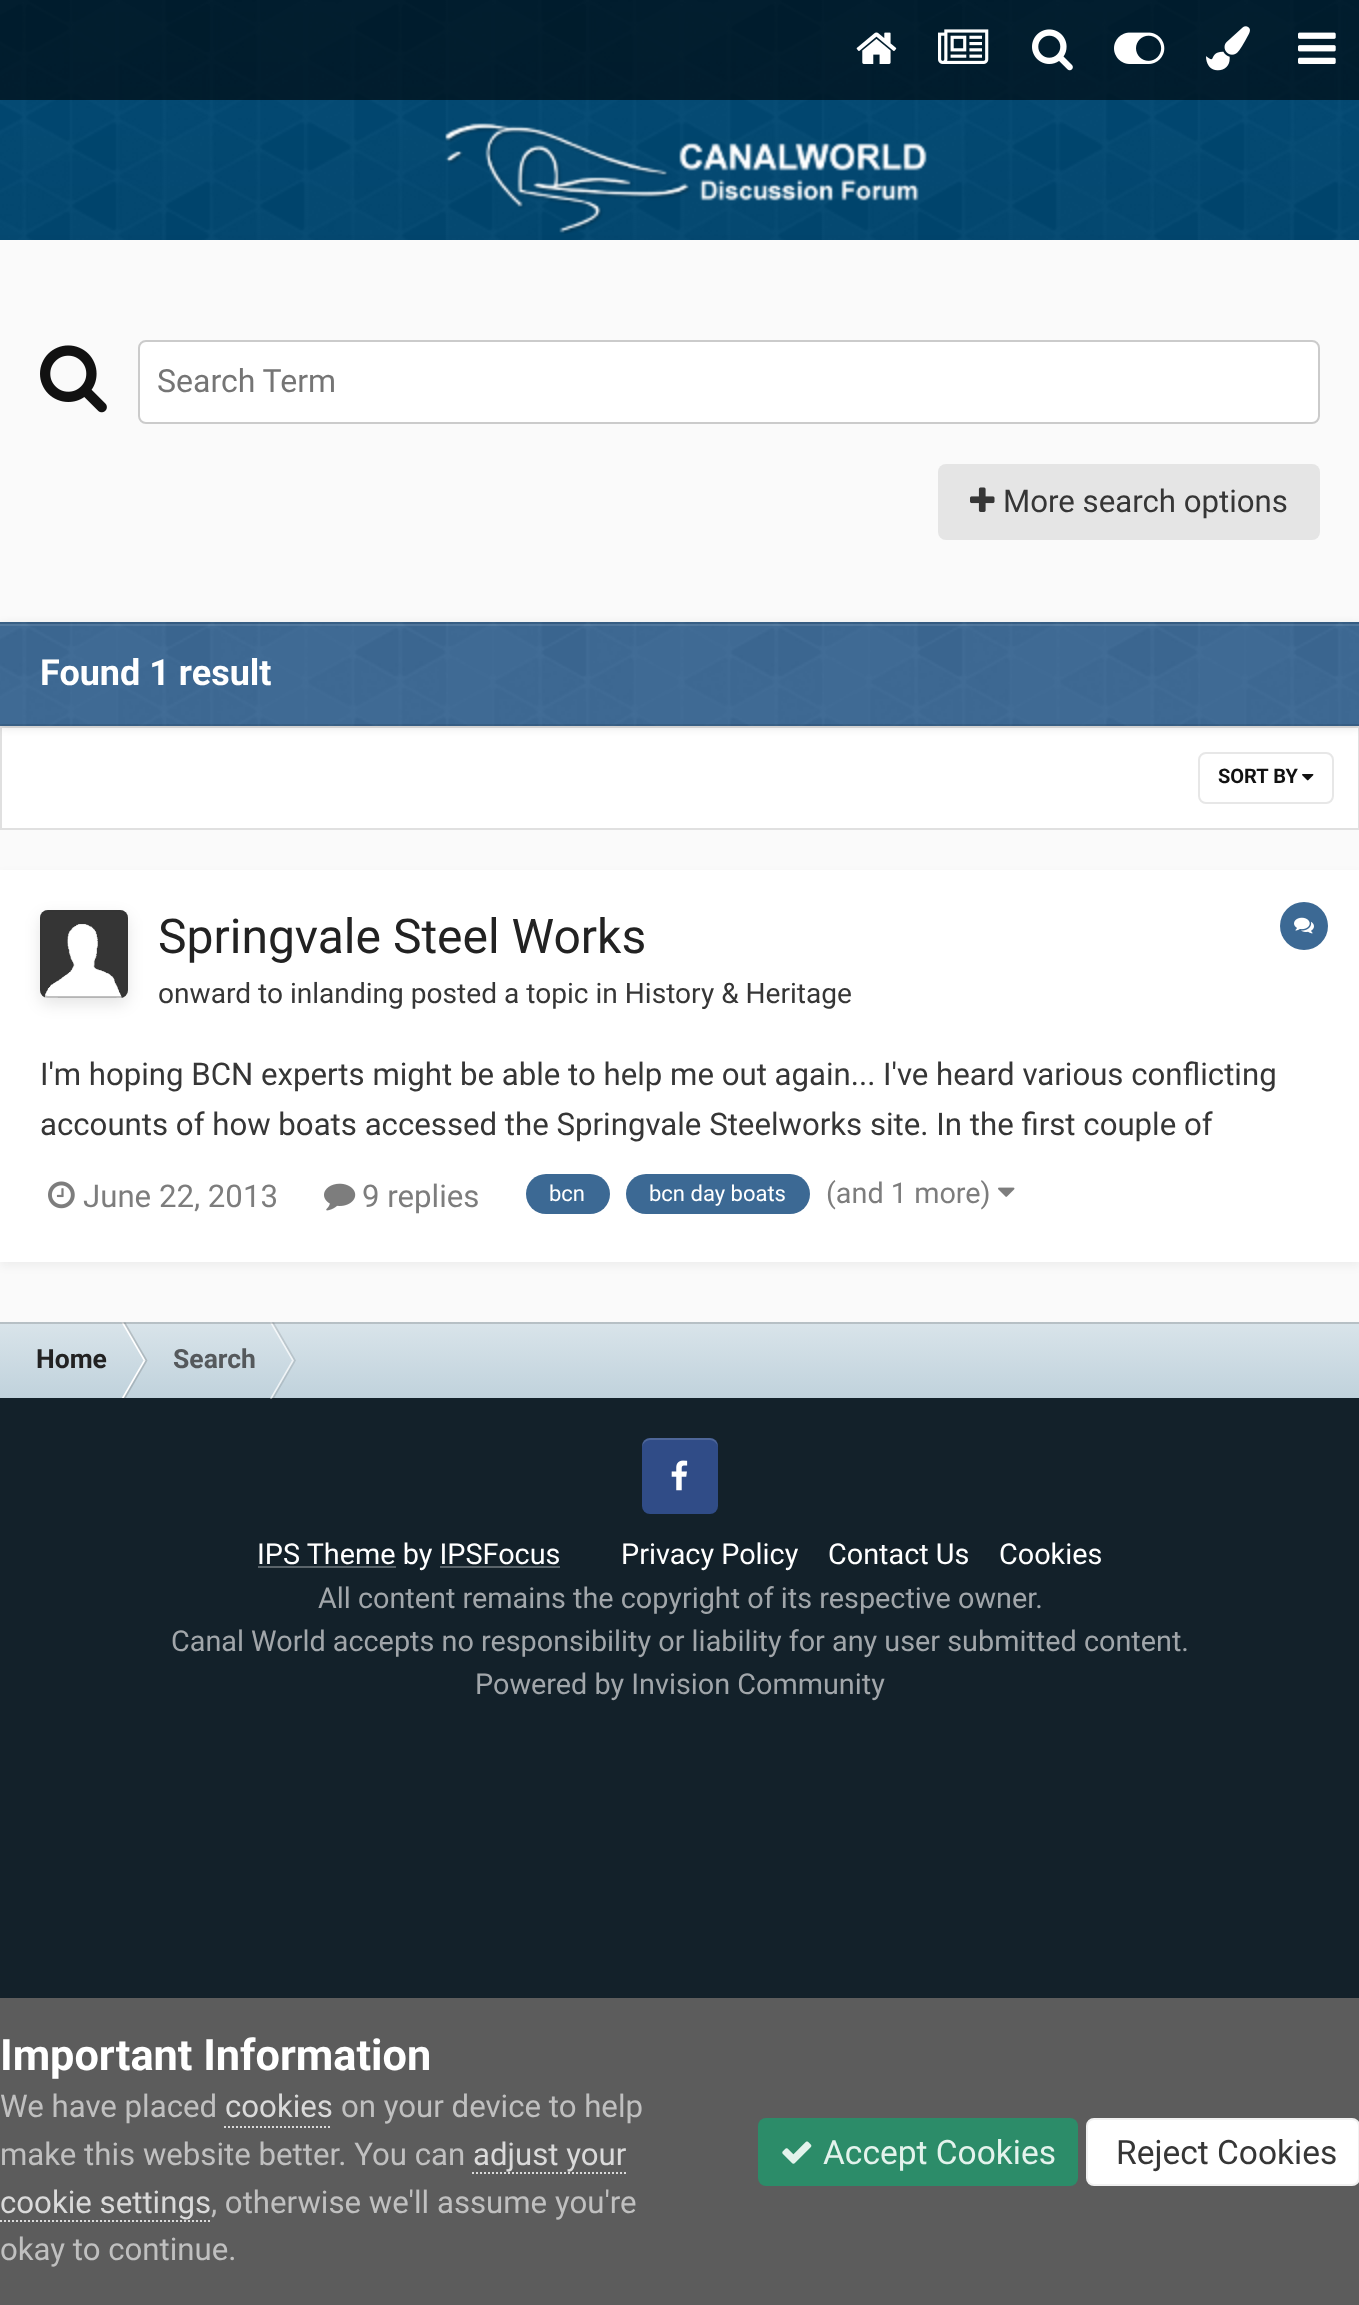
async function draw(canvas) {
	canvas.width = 1359;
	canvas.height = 2305;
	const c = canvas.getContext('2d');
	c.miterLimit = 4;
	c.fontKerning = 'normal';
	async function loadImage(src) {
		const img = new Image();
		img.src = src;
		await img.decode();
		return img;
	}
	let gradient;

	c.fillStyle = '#13212a';
	c.fillRect(0, 0, 1359, 2305);
	c.fillStyle = '#014974';
	c.fillRect(0, 0, 1359, 240);
	c.drawImage(await loadImage('img1.png'), 0, 0, 1359, 240);
	c.fillStyle = '#00000099';
	c.fillRect(0, 0, 1359, 100);
	c.drawImage(await loadImage('img2.png'), 856, 32, 41, 32);
	c.drawImage(await loadImage('img3.png'), 938, 29, 51, 35);
	c.drawImage(await loadImage('img4.png'), 1032, 29, 41, 42);
	c.drawImage(await loadImage('img5.png'), 1114, 32, 51, 32);
	c.drawImage(await loadImage('img6.png'), 1206, 26, 44, 45);
	c.drawImage(await loadImage('img7.png'), 1298, 32, 38, 32);
	c.drawImage(await loadImage('img8.png'), 445, 123, 482, 111);
	c.fillStyle = '#fafafa';
	c.fillRect(0, 240, 1359, 1082);
	c.drawImage(await loadImage('img9.png'), 40, 345, 67, 68);
	c.fillStyle = '#fff';
	c.beginPath();
	c.roundRect(139, 341, 1180, 82, 7);
	c.fill();
	c.strokeStyle = '#cbcbcb';
	c.lineWidth = 2;
	c.stroke();
	c.font = '32px Roboto';
	c.fillStyle = '#757575';
	c.fillText('Search Term', 157, 392);
	c.fillStyle = '#e5e5e5';
	c.beginPath();
	c.roundRect(938, 464, 382, 76, 8);
	c.fill();
	c.drawImage(await loadImage('img10.png'), 970, 487, 25, 25);
	c.font = '31.2px Roboto';
	c.fillStyle = '#363636';
	c.fillText('More search options', 1003, 512);
	c.fillStyle = '#fff';
	c.beginPath();
	c.rect(1, 727, 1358, 102);
	c.fill();
	c.strokeStyle = '#e0e0e0';
	c.stroke();
	c.fillStyle = '#0000001a';
	c.filter = 'blur(4px)';
	c.beginPath();
	c.rect(0, 624, 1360, 104);
	c.fill();
	c.filter = 'none';
	c.fillStyle = '#3c6994';
	c.fillRect(0, 622, 1359, 104);
	c.drawImage(await loadImage('img11.png'), 0, 622, 1359, 104);
	for (const [x, y, w, h, color] of [
		[0, 624, 1359, 2, '#ffffff1a'],
		[0, 622, 1359, 2, '#0000001a'],
		[0, 724, 1359, 2, '#0000001a'],
	]) {
		c.fillStyle = color;
		c.fillRect(x, y, w, h);
	}
	c.font = 'bold 36px Roboto';
	c.fillStyle = '#fff';
	c.fillText('Found 1 result', 40, 685);
	c.drawImage(await loadImage('img12.png'), 1302, 774, 12, 7);
	c.beginPath();
	c.roundRect(1199, 753, 134, 50, 7);
	c.strokeStyle = '#e7e7e7';
	c.stroke();
	c.font = 'bold 20px Roboto';
	c.fillStyle = '#111';
	c.fillText('SORT BY', 1218, 783);
	c.fillStyle = '#0000000d';
	c.filter = 'blur(5px)';
	c.beginPath();
	c.rect(0, 874, 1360, 392);
	c.fill();
	c.filter = 'none';
	c.fillStyle = '#fff';
	c.fillRect(0, 870, 1359, 392);
	c.drawImage(await loadImage('img13.png'), 40, 910, 88, 88);
	c.save();
	c.beginPath();
	c.moveTo(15, 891);
	c.lineTo(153, 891);
	c.lineTo(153, 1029);
	c.lineTo(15, 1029);
	c.closePath();
	c.moveTo(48, 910);
	c.lineTo(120, 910);
	c.bezierCurveTo(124.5, 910, 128, 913.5, 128, 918);
	c.lineTo(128, 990);
	c.bezierCurveTo(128, 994.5, 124.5, 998, 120, 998);
	c.lineTo(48, 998);
	c.bezierCurveTo(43.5, 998, 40, 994.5, 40, 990);
	c.lineTo(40, 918);
	c.bezierCurveTo(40, 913.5, 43.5, 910, 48, 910);
	c.closePath();
	c.clip('evenodd');
	c.fillStyle = '#0000001a';
	c.filter = 'blur(8px)';
	c.beginPath();
	c.roundRect(40, 916, 88, 88, 8);
	c.fill();
	c.filter = 'none';
	c.restore();
	c.beginPath();
	c.roundRect(41, 911, 86, 86, 7);
	c.strokeStyle = '#3333334d';
	c.stroke();
	c.font = '48px Roboto';
	c.fillStyle = '#222';
	c.fillText('Springvale Steel Works', 158, 953);
	c.font = '28.1px Roboto';
	c.fillStyle = '#363636';
	c.fillText('onward to inlanding posted a topic in History & Heritage', 158, 1003);
	c.fillStyle = '#3c6994';
	c.beginPath();
	c.arc(1304, 926, 24, 0, 2 * Math.PI);
	c.fill();
	c.drawImage(await loadImage('img14.png'), 1294, 917, 20, 17);
	c.font = '31.2px Roboto';
	c.fillStyle = '#363636';
	for (const [text, x, y] of [
		['I\'m hoping BCN experts might be able to help me out again...', 40, 1085],
		['I\'ve heard various conflicting', 883, 1085],
		['accounts of how boats accessed the Springvale Steelworks site. In the first couple of', 40, 1135],
	]) {
		c.fillText(text, x, y);
	}
	c.drawImage(await loadImage('img15.png'), 48, 1181, 27, 28);
	c.fillStyle = '#7d7d7d';
	c.fillText('June 22, 2013', 83, 1207);
	c.drawImage(await loadImage('img16.png'), 324, 1183, 32, 28);
	c.fillText('9 replies', 362, 1207);
	c.fillStyle = '#3c6994';
	c.beginPath();
	c.roundRect(526, 1174, 84, 40, 20);
	c.fill();
	c.font = '22px Roboto';
	c.fillStyle = '#fff';
	c.fillText('bcn', 549, 1201);
	c.fillStyle = '#3c6994';
	c.beginPath();
	c.roundRect(626, 1174, 184, 40, 20);
	c.fill();
	c.fillStyle = '#fff';
	c.fillText('bcn day boats', 649, 1201);
	c.font = '28.8px Roboto';
	c.fillStyle = '#7d7d7d';
	c.fillText('(and 1 more)', 826, 1203);
	c.drawImage(await loadImage('img17.png'), 998, 1187, 17, 10);
	gradient = c.createLinearGradient(680, 1322, 680, 1398);
	gradient.addColorStop(0, '#d9e4ea');
	gradient.addColorStop(1, '#c0d2dc');
	c.fillStyle = gradient;
	c.fillRect(0, 1322, 1359, 76);
	c.fillStyle = '#fff';
	c.beginPath();
	c.moveTo(121.5, 1322.5);
	c.lineTo(123.5, 1322.5);
	c.lineTo(145.5, 1360.5);
	c.lineTo(143.5, 1360.5);
	c.closePath();
	c.fill();
	c.fillStyle = '#33333333';
	c.beginPath();
	c.moveTo(123.5, 1322.5);
	c.lineTo(125.5, 1322.5);
	c.lineTo(147.5, 1360.5);
	c.lineTo(145.5, 1360.5);
	c.closePath();
	c.fill();
	c.fillStyle = '#ffffffb3';
	c.beginPath();
	c.moveTo(270, 1322.5);
	c.lineTo(272, 1322.5);
	c.lineTo(294, 1360.5);
	c.lineTo(292, 1360.5);
	c.closePath();
	c.fill();
	c.fillStyle = '#33333324';
	c.beginPath();
	c.moveTo(272, 1322.5);
	c.lineTo(274, 1322.5);
	c.lineTo(296, 1360.5);
	c.lineTo(294, 1360.5);
	c.closePath();
	c.fill();
	c.fillStyle = '#33333333';
	c.fillRect(0, 1322, 1359, 2);
	c.font = 'bold 26.5px Roboto';
	c.fillStyle = '#222';
	c.fillText('Home', 36, 1368);
	c.save();
	c.beginPath();
	c.rect(0, 1322, 1308, 76);
	c.clip();
	c.fillStyle = '#fff';
	c.beginPath();
	c.moveTo(121.5, 1398.5);
	c.lineTo(123.5, 1398.5);
	c.lineTo(145.5, 1360.5);
	c.lineTo(143.5, 1360.5);
	c.closePath();
	c.fill();
	c.restore();
	c.fillStyle = '#33333333';
	c.beginPath();
	c.moveTo(123.5, 1398.5);
	c.lineTo(125.5, 1398.5);
	c.lineTo(147.5, 1360.5);
	c.lineTo(145.5, 1360.5);
	c.closePath();
	c.fill();
	c.fillStyle = '#55595c';
	c.fillText('Search', 173, 1368);
	c.fillStyle = '#ffffffb3';
	c.beginPath();
	c.moveTo(270, 1398.5);
	c.lineTo(272, 1398.5);
	c.lineTo(294, 1360.5);
	c.lineTo(292, 1360.5);
	c.closePath();
	c.fill();
	c.fillStyle = '#33333324';
	c.beginPath();
	c.moveTo(272, 1398.5);
	c.lineTo(274, 1398.5);
	c.lineTo(296, 1360.5);
	c.lineTo(294, 1360.5);
	c.closePath();
	c.fill();
	c.fillStyle = '#304c87';
	c.beginPath();
	c.roundRect(642, 1438, 76, 76, 8);
	c.fill();
	c.fillStyle = '#ffffff26';
	c.beginPath();
	c.moveTo(650, 1440);
	c.bezierCurveTo(646, 1440, 642, 1444, 642, 1448);
	c.bezierCurveTo(642, 1436, 651, 1438, 660, 1438);
	c.lineTo(700, 1438);
	c.bezierCurveTo(709, 1438, 718, 1436, 718, 1448);
	c.bezierCurveTo(718, 1444, 714, 1440, 710, 1440);
	c.closePath();
	c.fill();
	c.drawImage(await loadImage('img18.png'), 671, 1460, 17, 31);
	c.fillStyle = '#5a646a';
	c.fillRect(258, 1566, 138, 2);
	c.font = '28.8px Roboto';
	c.fillStyle = '#fff';
	c.fillText('IPS Theme by IPSFocus', 257, 1564);
	c.fillStyle = '#5a646a';
	c.fillRect(440, 1566, 120, 2);
	c.fillStyle = '#fff';
	for (const [text, x, y] of [
		['Privacy Policy', 621, 1564],
		['Contact Us', 828, 1564],
		['Cookies', 999, 1564],
	]) {
		c.fillText(text, x, y);
	}
	c.fillStyle = '#a1a6aa';
	for (const [text, x, y] of [
		['All content remains the copyright of its respective owner.', 318, 1608],
		['Canal World accepts no responsibility or liability for any user submitted content.', 171, 1651],
		['Powered by Invision Community', 475, 1694],
	]) {
		c.fillText(text, x, y);
	}
	c.fillStyle = '#5c5c5c';
	c.fillRect(0, 1998, 1359, 307);
	c.font = 'bold 43.25px Roboto';
	c.fillStyle = '#fff';
	c.fillText('Important Information', 0, 2070);
	c.font = '31.2px Roboto';
	c.fillStyle = '#c0c0c0';
	c.fillText('We have placed', 0, 2117);
	c.fillStyle = '#dadada';
	c.fillText('cookies', 225, 2117);
	c.beginPath();
	c.moveTo(224, 2127);
	c.lineTo(332, 2127);
	c.strokeStyle = '#dadada';
	c.setLineDash([2, 2]);
	c.stroke();
	c.fillStyle = '#c0c0c0';
	c.fillText('on your device to help', 341, 2117);
	c.fillText('make this website better. You can', 0, 2165);
	c.fillStyle = '#dadada';
	c.fillText('adjust your', 473, 2165);
	c.beginPath();
	c.moveTo(472, 2173);
	c.lineTo(626, 2173);
	c.stroke();
	c.fillText('cookie settings', 0, 2213);
	c.beginPath();
	c.moveTo(0, 2221);
	c.lineTo(212, 2221);
	c.stroke();
	c.fillStyle = '#c0c0c0';
	c.fillText(', otherwise we\'ll assume you\'re', 211, 2213);
	c.fillText('okay to continue.', 0, 2260);
	c.fillStyle = '#2c8c69';
	c.beginPath();
	c.roundRect(758, 2118, 320, 68, 8);
	c.fill();
	c.drawImage(await loadImage('img19.png'), 782, 2141, 30, 23);
	c.font = '33.5px Roboto';
	c.fillStyle = '#e3f3ec';
	c.fillText('Accept Cookies', 823, 2164);
	c.fillStyle = '#fff';
	c.beginPath();
	c.roundRect(1086, 2118, 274, 68, 8);
	c.fill();
	c.beginPath();
	c.roundRect(1087, 2119, 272, 66, 7);
	c.strokeStyle = '#33333312';
	c.setLineDash([]);
	c.stroke();
	c.fillStyle = '#363636';
	c.fillText('Reject Cookies', 1116, 2164);
}

draw(document.querySelector('canvas'));
